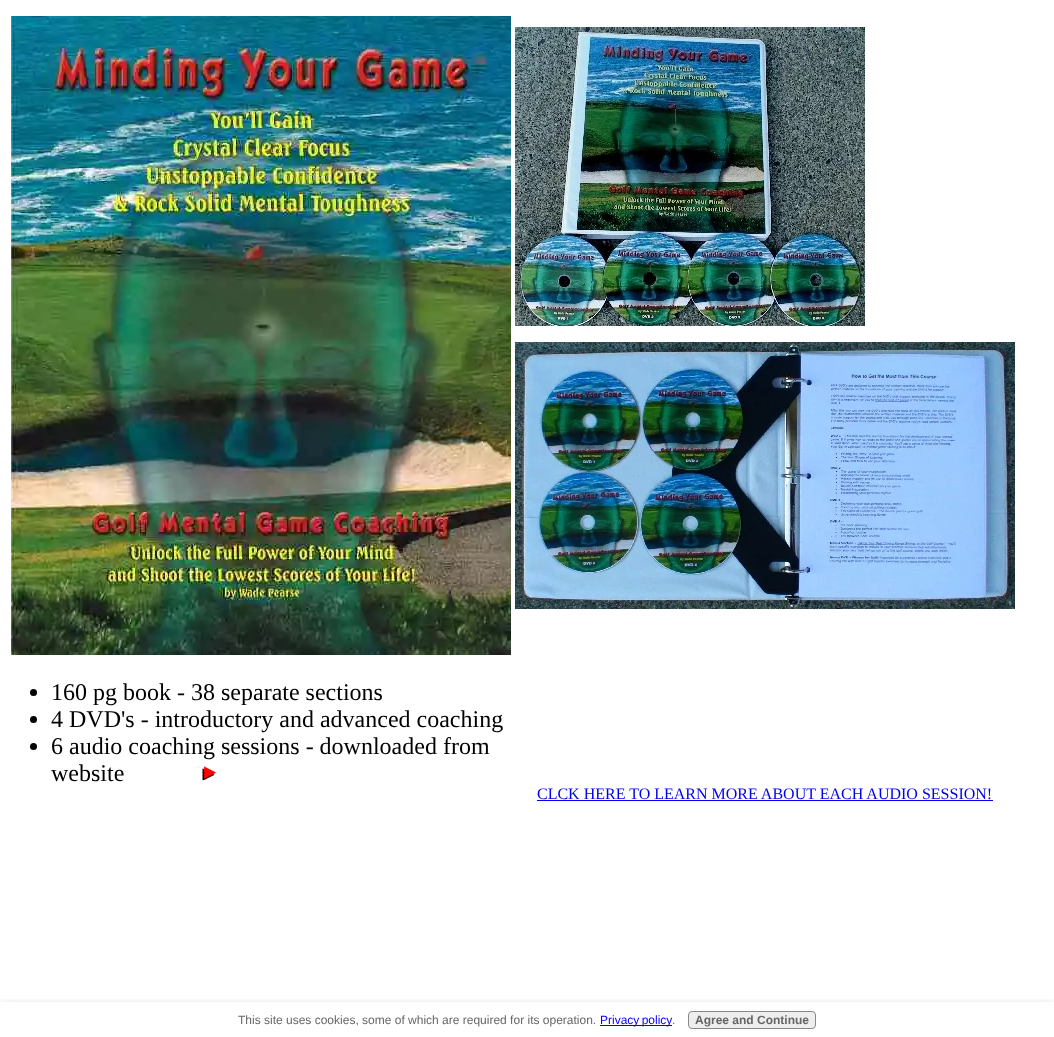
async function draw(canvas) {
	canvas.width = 1054;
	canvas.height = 1037;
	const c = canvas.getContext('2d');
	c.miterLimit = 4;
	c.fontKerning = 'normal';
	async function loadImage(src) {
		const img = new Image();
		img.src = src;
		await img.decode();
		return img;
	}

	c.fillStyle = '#fff';
	c.fillRect(0, 0, 1054, 1037);
	c.drawImage(await loadImage('img1.png'), 11, 16, 500, 639);
	c.drawImage(await loadImage('img2.png'), 515, 27, 350, 299);
	c.drawImage(await loadImage('img3.png'), 515, 342, 500, 267);
	c.fillStyle = '#000';
	c.beginPath();
	c.arc(33.5, 692.5, 3.5, 0, 2 * Math.PI);
	c.fill();
	c.font = '24px Liberation Serif';
	c.fillText('160 pg book - 38 separate sections', 51, 700);
	c.beginPath();
	c.arc(33.5, 719.5, 3.5, 0, 2 * Math.PI);
	c.fill();
	c.fillText('4 DVD\'s - introductory and advanced coaching', 51, 727);
	c.beginPath();
	c.arc(33.5, 746.5, 3.5, 0, 2 * Math.PI);
	c.fill();
	c.fillText('6 audio coaching sessions - downloaded from', 51, 754);
	c.fillText('website', 51, 781);
	c.drawImage(await loadImage('img4.png'), 202, 766, 14, 15);
	c.font = '16px Liberation Serif';
	c.fillStyle = '#00e';
	c.fillText('CLCK HERE TO LEARN MORE ABOUT EACH AUDIO SESSION!', 537, 799);
	c.fillRect(537, 800, 456, 1);
	c.save();
	c.beginPath();
	c.rect(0, 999, 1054, 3);
	c.clip();
	c.fillStyle = '#00000033';
	c.filter = 'blur(5px)';
	c.beginPath();
	c.rect(-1, 1005, 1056, 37);
	c.fill();
	c.filter = 'none';
	c.restore();
	c.font = '12px Liberation Sans';
	c.fillStyle = '#666';
	c.fillText('This site uses cookies, some of which are required for its operation.', 238, 1024);
	c.fillStyle = '#00f';
	c.fillRect(600, 1025, 72, 1);
	c.wordSpacing = '-1px';
	c.fillText('Privacy policy', 600, 1024);
	c.wordSpacing = '0px';
	c.fillStyle = '#666';
	c.fillText('.', 672, 1024);
	c.fillStyle = '#eee';
	c.beginPath();
	c.roundRect(688.5, 1011.5, 127, 17, 3.5);
	c.fill();
	c.strokeStyle = '#888';
	c.stroke();
	c.font = 'bold 12px Liberation Sans';
	c.fillStyle = '#666';
	c.fillText('Agree and Continue', 695, 1024);
}

draw(document.querySelector('canvas'));
